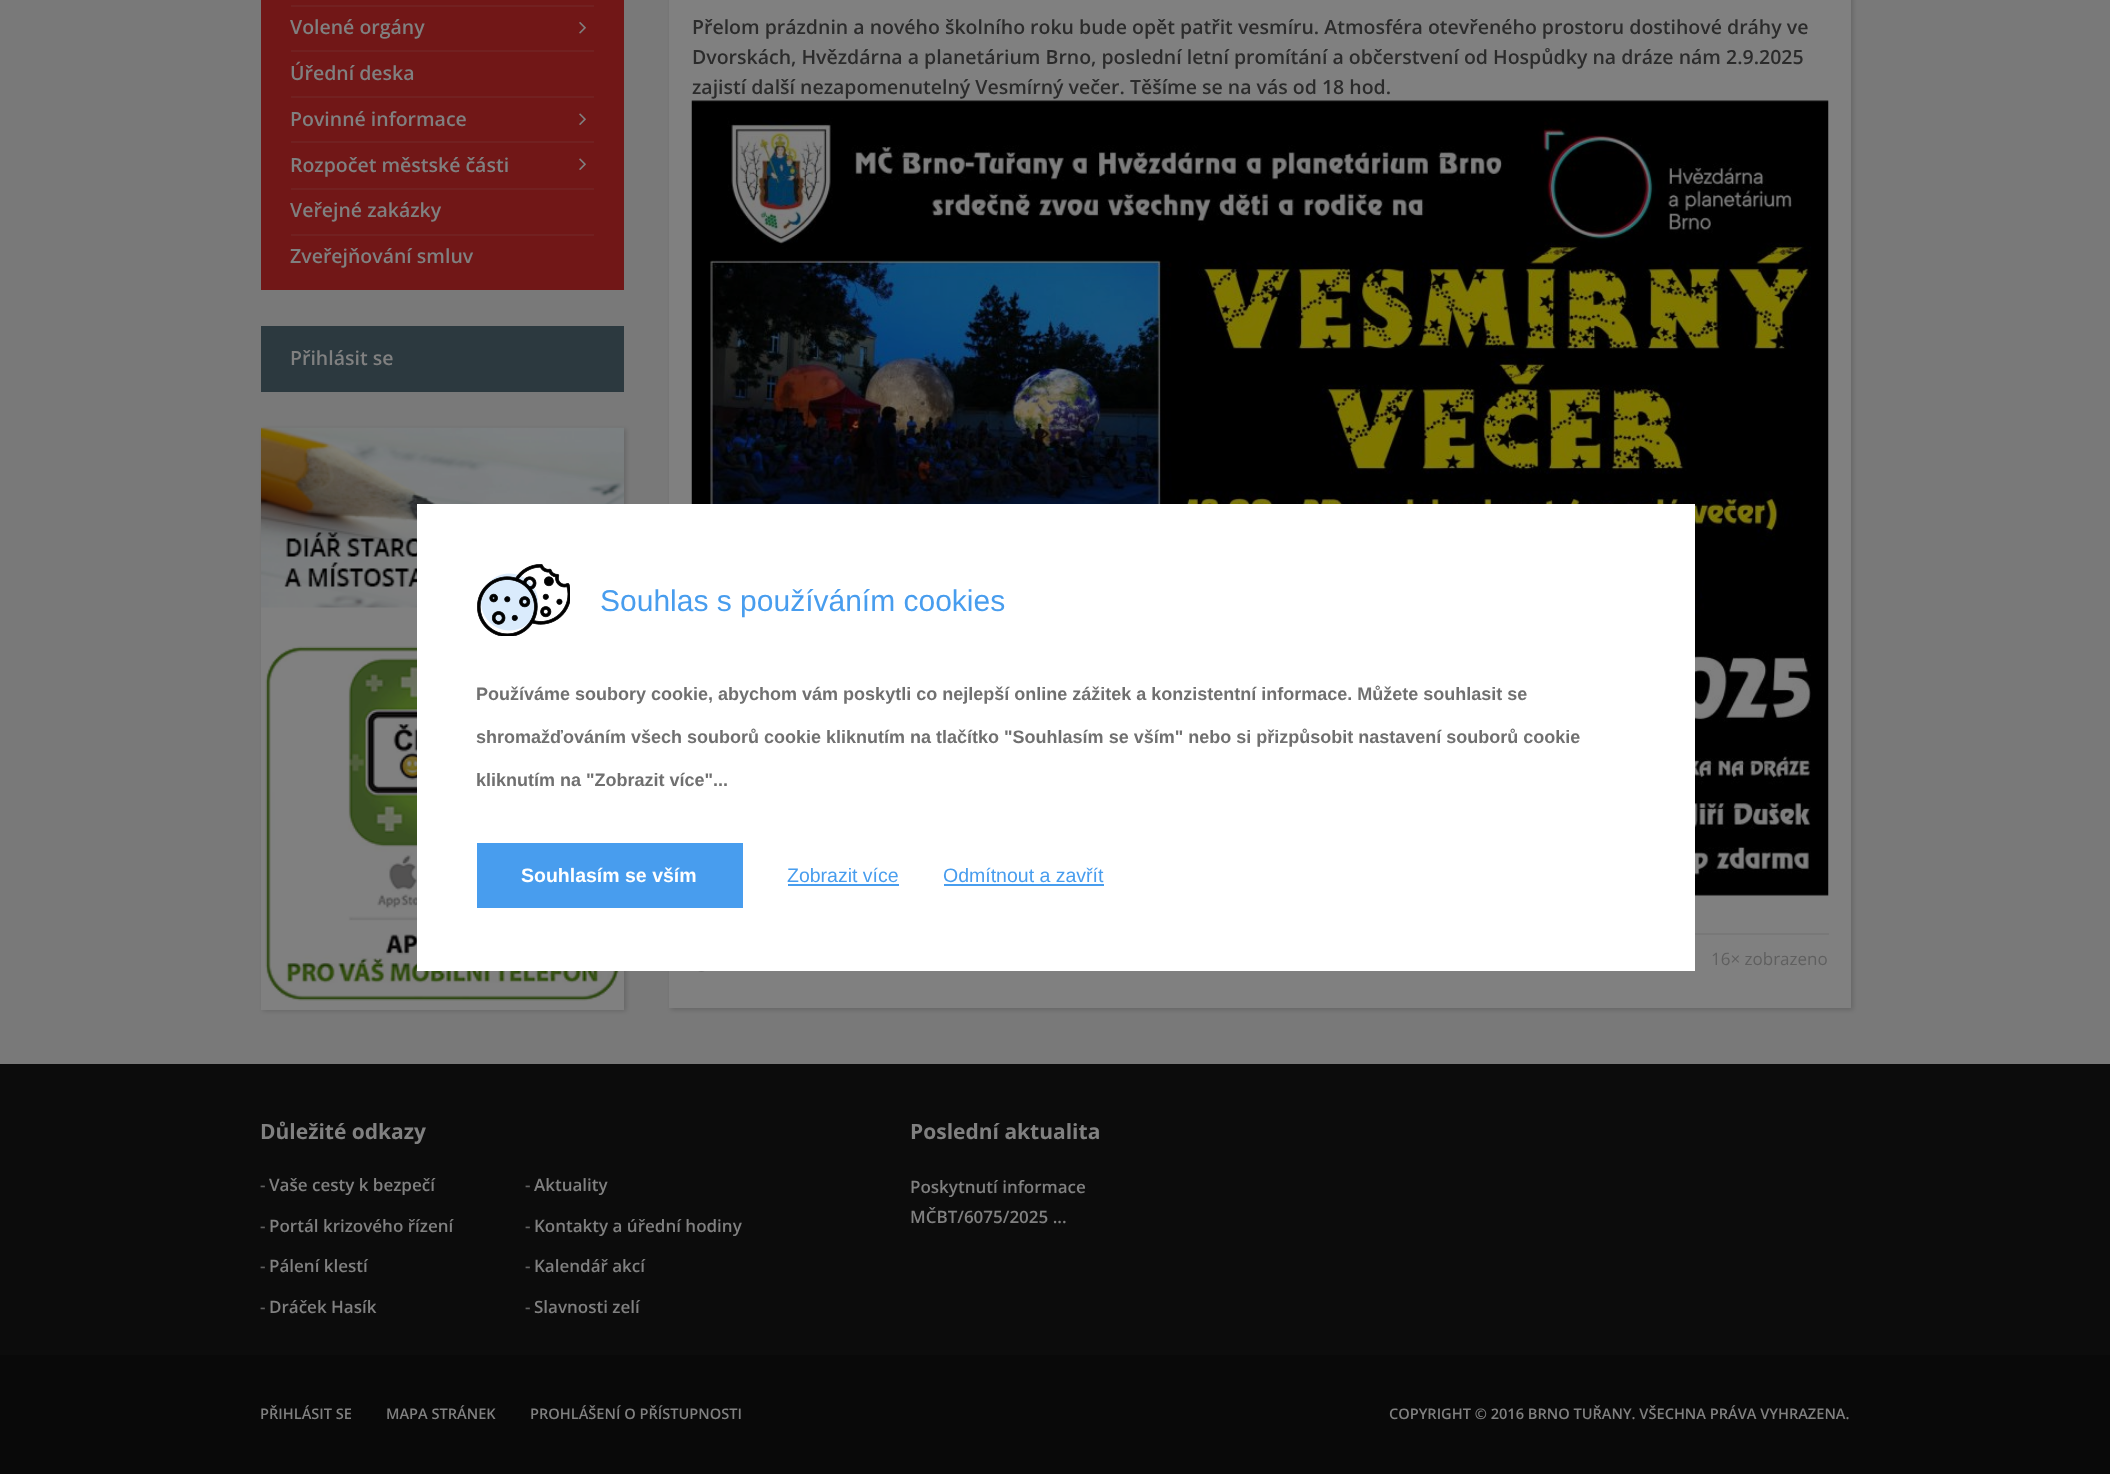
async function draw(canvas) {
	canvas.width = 2110;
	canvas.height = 1474;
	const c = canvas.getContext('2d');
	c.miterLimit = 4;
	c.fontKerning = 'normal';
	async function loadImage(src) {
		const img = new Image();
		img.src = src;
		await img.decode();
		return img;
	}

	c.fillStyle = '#797979';
	c.fillRect(0, 0, 2110, 1474);
	c.fillStyle = '#711717';
	c.fillRect(261, 0, 363, 290);
	c.fillStyle = '#722121';
	c.fillRect(291, 5, 303, 2);
	c.font = '600 19.5px Open Sans';
	c.fillStyle = '#808080';
	c.fillText('Volené orgány', 290, 34);
	c.drawImage(await loadImage('img1.png'), 579, 22, 7, 12);
	c.fillStyle = '#722121';
	c.fillRect(291, 50, 303, 2);
	c.fillStyle = '#808080';
	c.fillText('Úřední deska', 290, 80);
	c.fillStyle = '#722121';
	c.fillRect(291, 96, 303, 2);
	c.fillStyle = '#808080';
	c.fillText('Povinné informace', 290, 126);
	c.drawImage(await loadImage('img2.png'), 579, 113, 7, 12);
	c.fillStyle = '#722121';
	c.fillRect(291, 141, 303, 2);
	c.fillStyle = '#808080';
	c.fillText('Rozpočet městské části', 290, 172);
	c.drawImage(await loadImage('img2.png'), 579, 158, 7, 12);
	c.fillStyle = '#722121';
	c.fillRect(291, 188, 303, 2);
	c.fillStyle = '#808080';
	c.fillText('Veřejné zakázky', 290, 217);
	c.fillStyle = '#722121';
	c.fillRect(291, 234, 303, 2);
	c.fillStyle = '#808080';
	c.fillText('Zveřejňování smluv', 290, 263);
	c.fillStyle = '#2c393f';
	c.fillRect(261, 326, 363, 66);
	c.fillStyle = '#808080';
	c.fillText('Přihlásit se', 290, 365);
	c.fillStyle = '#00000026';
	c.filter = 'blur(2px)';
	c.beginPath();
	c.rect(263, 429, 363, 582);
	c.fill();
	c.filter = 'none';
	c.fillStyle = '#808080';
	c.fillRect(261, 607, 363, 403);
	c.drawImage(await loadImage('img3.png'), 261, 427, 363, 181);
	c.drawImage(await loadImage('img4.png'), 265, 646, 354, 355);
	c.fillStyle = '#00000026';
	c.filter = 'blur(2px)';
	c.beginPath();
	c.rect(671, -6, 1182, 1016);
	c.fill();
	c.filter = 'none';
	c.fillStyle = '#808080';
	c.fillRect(669, 0, 1182, 1008);
	c.fillStyle = '#2b2b2b';
	for (const [text, x, y] of [
		['Přelom prázdnin a nového školního roku bude opět patřit vesmíru. Atmosféra otevřeného prostoru dostihové dráhy ve', 692, 34],
		['Dvorskách, Hvězdárna a planetárium Brno, poslední letní promítání a občerstvení od Hospůdky na dráze nám 2.9.2025', 692, 64],
		['zajistí další nezapomenutelný Vesmírný večer. Těšíme se na vás od 18 hod.', 692, 94],
	]) {
		c.fillText(text, x, y);
	}
	c.drawImage(await loadImage('img5.png'), 691, 100, 1138, 796);
	c.fillStyle = '#787878';
	c.fillRect(1695, 933, 134, 2);
	c.font = '17px Open Sans';
	c.fillStyle = '#5f5f5f';
	c.fillText('16× zobrazeno', 1711, 965);
	c.drawImage(await loadImage('img6.png'), 698, 971, 7, 1);
	c.fillStyle = '#fff';
	c.fillRect(417, 504, 1278, 467);
	c.drawImage(await loadImage('img7.png'), 477, 564, 93, 72);
	c.font = '30px Liberation Sans';
	c.fillStyle = '#489dee';
	c.fillText('Souhlas s používáním cookies', 600, 611);
	c.font = 'bold 18px Liberation Sans';
	c.fillStyle = '#707070';
	for (const [text, x, y] of [
		['Používáme soubory cookie, abychom vám poskytli co nejlepší online zážitek a konzistentní informace. Můžete souhlasit se', 476, 700],
		['shromažďováním všech souborů cookie kliknutím na tlačítko "Souhlasím se vším" nebo si přizpůsobit nastavení souborů cookie', 476, 743],
		['kliknutím na "Zobrazit více"...', 476, 786],
	]) {
		c.fillText(text, x, y);
	}
	c.fillStyle = '#489dee';
	c.fillRect(477, 843, 266, 65);
	c.font = 'bold 19.5px Liberation Sans';
	c.fillStyle = '#fff';
	c.fillText('Souhlasím se vším', 521, 882);
	c.font = '19.5px Liberation Sans';
	c.fillStyle = '#489dee';
	c.fillText('Zobrazit více', 787, 882);
	c.fillRect(788, 884, 111, 2);
	c.fillText('Odmítnout a zavřít', 943, 882);
	c.fillRect(944, 884, 160, 2);
	c.fillStyle = '#0c0c0c';
	c.fillRect(0, 1064, 2110, 291);
	c.font = 'bold 21px Open Sans';
	c.fillStyle = '#808080';
	c.fillText('Důležité odkazy', 260, 1139);
	c.font = '600 17px Open Sans';
	c.fillStyle = '#5f5f5f';
	c.fillText('-', 260, 1191);
	c.fillStyle = '#808080';
	c.fillText('Vaše cesty k bezpečí', 269, 1191);
	c.fillStyle = '#5f5f5f';
	c.fillText('-', 260, 1232);
	c.fillStyle = '#808080';
	c.fillText('Portál krizového řízení', 269, 1232);
	c.fillStyle = '#5f5f5f';
	c.fillText('-', 260, 1272);
	c.fillStyle = '#808080';
	c.fillText('Pálení klestí', 269, 1272);
	c.fillStyle = '#5f5f5f';
	c.fillText('-', 260, 1313);
	c.fillStyle = '#808080';
	c.fillText('Dráček Hasík', 269, 1313);
	c.fillStyle = '#5f5f5f';
	c.fillText('-', 525, 1191);
	c.fillStyle = '#808080';
	c.fillText('Aktuality', 534, 1191);
	c.fillStyle = '#5f5f5f';
	c.fillText('-', 525, 1232);
	c.fillStyle = '#808080';
	c.fillText('Kontakty a úřední hodiny', 534, 1232);
	c.fillStyle = '#5f5f5f';
	c.fillText('-', 525, 1272);
	c.fillStyle = '#808080';
	c.fillText('Kalendář akcí', 534, 1272);
	c.fillStyle = '#5f5f5f';
	c.fillText('-', 525, 1313);
	c.fillStyle = '#808080';
	c.fillText('Slavnosti zelí', 534, 1313);
	c.font = 'bold 21px Open Sans';
	c.fillText('Poslední aktualita', 910, 1139);
	c.font = '600 17px Open Sans';
	c.fillText('Poskytnutí informace', 910, 1193);
	c.fillText('MČBT/6075/2025 ...', 910, 1223);
	c.fillStyle = '#090909';
	c.fillRect(0, 1355, 2110, 119);
	c.font = '600 14.6px Open Sans';
	c.fillStyle = '#808080';
	for (const [text, x, y] of [
		['PŘIHLÁSIT SE', 260, 1419],
		['MAPA STRÁNEK', 386, 1419],
		['PROHLÁŠENÍ O PŘÍSTUPNOSTI', 530, 1419],
		['COPYRIGHT © 2016 BRNO TUŘANY. VŠECHNA PRÁVA VYHRAZENA.', 1389, 1419],
	]) {
		c.fillText(text, x, y);
	}
}

draw(document.querySelector('canvas'));
